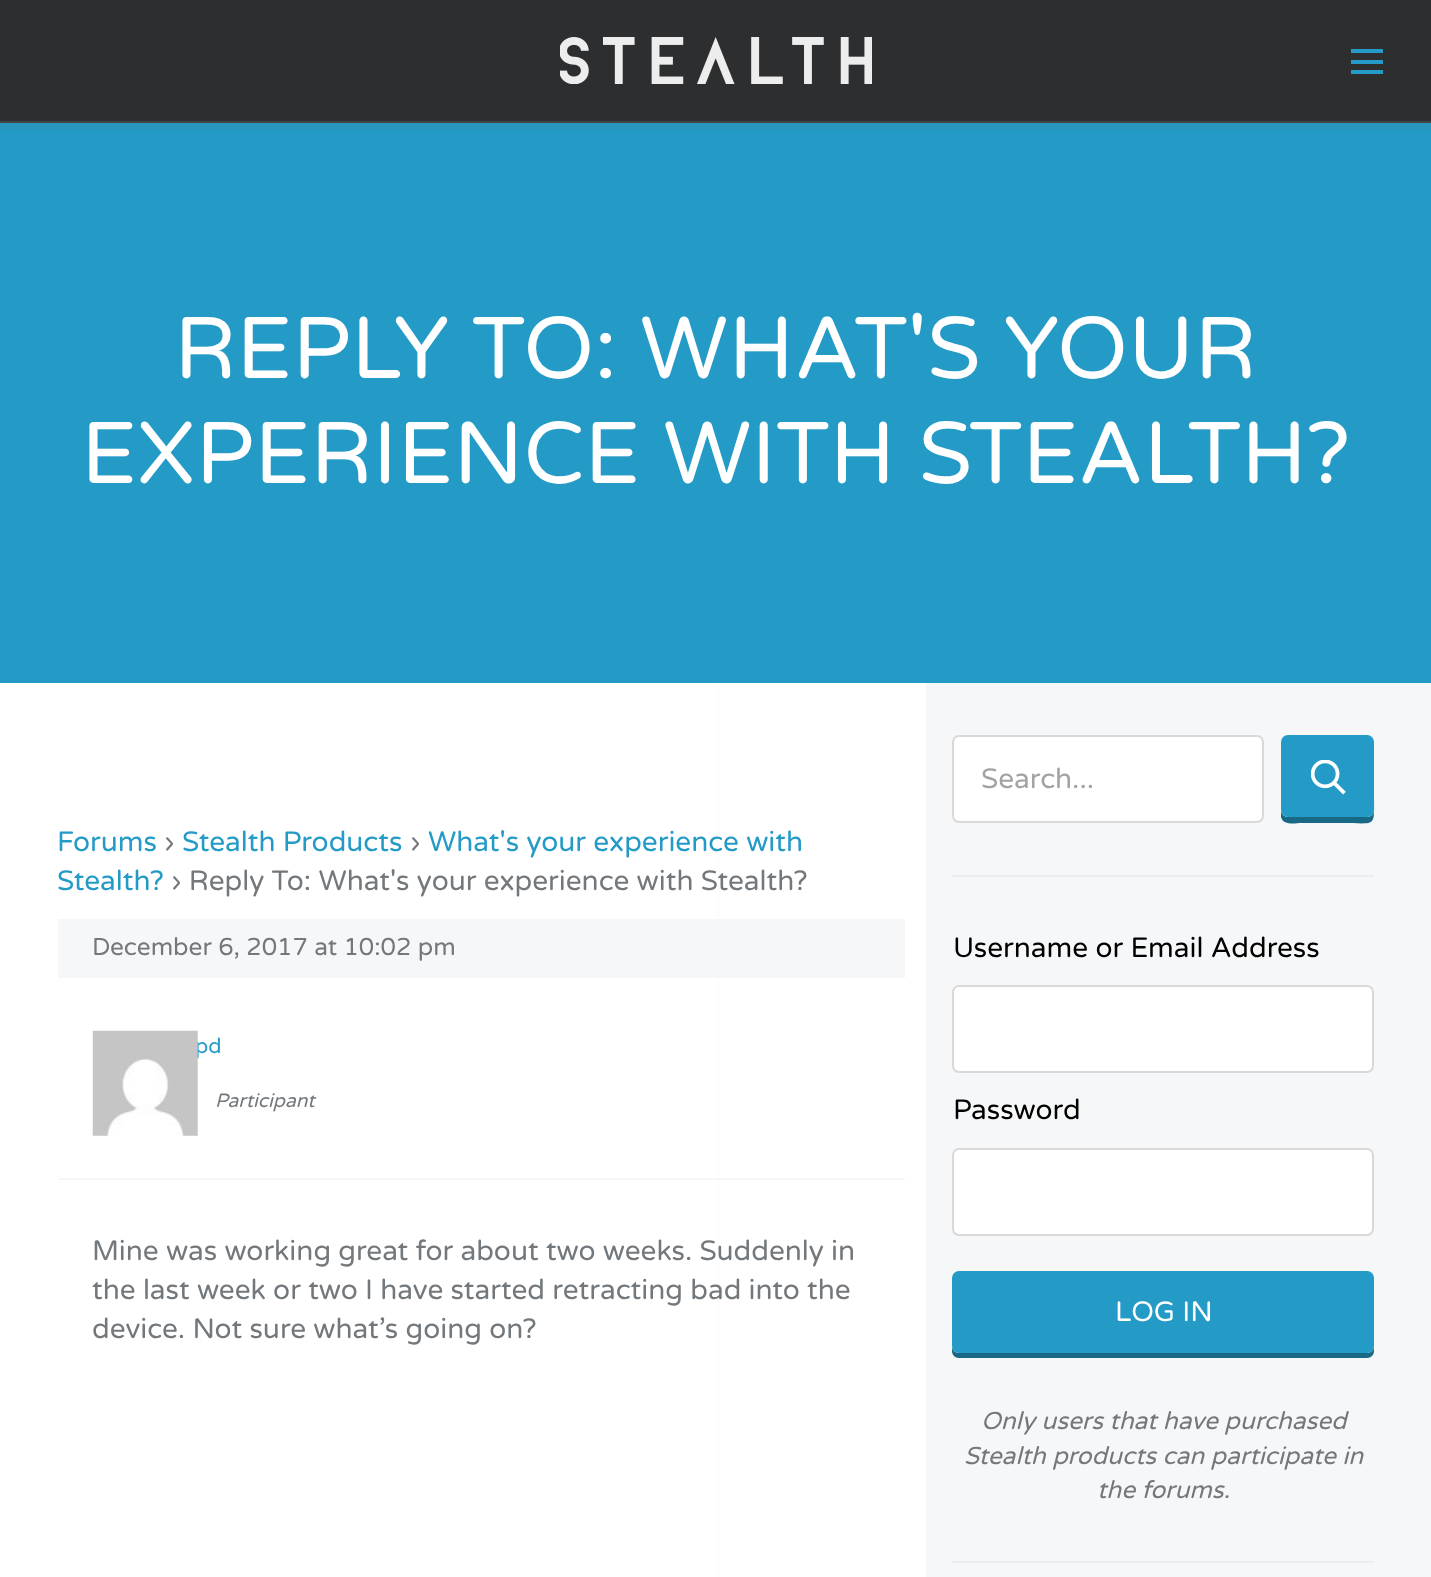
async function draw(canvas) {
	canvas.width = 1431;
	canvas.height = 1577;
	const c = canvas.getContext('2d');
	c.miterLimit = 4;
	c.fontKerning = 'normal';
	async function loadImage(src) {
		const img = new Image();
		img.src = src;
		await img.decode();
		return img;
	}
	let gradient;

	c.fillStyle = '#249bc6';
	c.fillRect(0, 0, 1431, 1577);
	c.fillStyle = '#62626214';
	c.beginPath();
	c.moveTo(0, 122);
	c.lineTo(0, 130);
	c.lineTo(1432, 130);
	c.lineTo(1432, 7);
	c.lineTo(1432, 122);
	c.closePath();
	c.fill();
	c.fillStyle = '#2c2e2f';
	c.fillRect(0, 0, 1431, 121);
	c.fillStyle = '#414344';
	c.fillRect(0, 121, 1431, 2);
	c.drawImage(await loadImage('img1.png'), 560, 37, 312, 47);
	for (const [x, y, w, h, color] of [
		[1351, 60, 32, 4, '#249bc6'],
		[1351, 49, 32, 4, '#249bc6'],
		[1351, 70, 32, 4, '#249bc6'],
	]) {
		c.fillStyle = color;
		c.fillRect(x, y, w, h);
	}
	c.font = '87.5px Varela Round';
	c.fillStyle = '#fff';
	c.fillText('REPLY TO: WHAT\'S YOUR', 174, 378);
	c.fillText('EXPERIENCE WITH STEALTH?', 81, 483);
	gradient = c.createLinearGradient(0, 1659, 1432, 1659);
	gradient.addColorStop(0.01, '#fff');
	gradient.addColorStop(0.5, '#fff');
	gradient.addColorStop(0.51, '#f6f7f8');
	gradient.addColorStop(1, '#f6f7f8');
	c.fillStyle = gradient;
	c.fillRect(0, 683, 1431, 894);
	c.fillStyle = '#fff';
	c.fillRect(720, 683, 206, 894);
	c.font = '28px Varela Round';
	c.fillStyle = '#249bc6';
	c.fillText('Forums', 57, 851);
	c.fillStyle = '#73787c';
	c.fillText('›', 164, 851);
	c.fillStyle = '#249bc6';
	c.fillText('Stealth Products', 182, 851);
	c.fillStyle = '#73787c';
	c.fillText('›', 410, 851);
	c.fillStyle = '#249bc6';
	c.fillText('What\'s your experience with', 428, 851);
	c.fillText('Stealth?', 57, 890);
	c.fillStyle = '#73787c';
	c.fillText('› Reply To: What\'s your experience with Stealth?', 171, 890);
	c.fillStyle = '#f6f7f8';
	c.fillRect(58, 919, 847, 59);
	c.font = '24.5px Varela Round';
	c.fillStyle = '#73787c';
	c.fillText('December 6, 2017 at 10:02 pm', 92, 955);
	c.fillStyle = '#f6f7f8';
	c.fillRect(58, 1178, 847, 2);
	c.font = '21px Varela Round';
	c.fillStyle = '#249bc6';
	c.fillText('pd', 195, 1053);
	c.drawImage(await loadImage('img2.png'), 92, 1030, 106, 106);
	c.font = 'italic 19.25px Varela Round';
	c.fillStyle = '#73787c';
	c.fillText('Participant', 215, 1107);
	c.font = '28px Varela Round';
	for (const [text, x, y] of [
		['Mine was working great for about two weeks. Suddenly in', 92, 1260],
		['the last week or two I have started retracting bad into the', 92, 1299],
		['device. Not sure what’s going on?', 92, 1338],
	]) {
		c.fillText(text, x, y);
	}
	c.fillStyle = '#fff';
	c.beginPath();
	c.roundRect(953, 736, 310, 86, 6);
	c.fill();
	c.strokeStyle = '#d9d9d9';
	c.lineWidth = 2;
	c.stroke();
	c.fillStyle = '#a3a3a3';
	c.fillText('Search...', 981, 788);
	c.fillStyle = '#186986';
	c.beginPath();
	c.moveTo(1281, 810);
	c.lineTo(1281, 817);
	c.bezierCurveTo(1283, 826, 1296, 823, 1301, 823);
	c.lineTo(1341, 823);
	c.bezierCurveTo(1378, 823, 1374, 829, 1374, 793);
	c.lineTo(1374, 745);
	c.lineTo(1374, 810);
	c.bezierCurveTo(1374, 814, 1371, 817, 1367, 817);
	c.lineTo(1288, 817);
	c.bezierCurveTo(1284, 817, 1281, 814, 1281, 810);
	c.closePath();
	c.fill();
	c.fillStyle = '#249bc6';
	c.beginPath();
	c.roundRect(1281, 735, 93, 82, 7);
	c.fill();
	c.drawImage(await loadImage('img3.png'), 1311, 760, 35, 35);
	c.fillStyle = '#eee';
	c.fillRect(952, 875, 422, 2);
	c.fillStyle = '#000';
	c.fillText('Username or Email Address', 953, 957);
	c.fillStyle = '#fff';
	c.beginPath();
	c.roundRect(953, 986, 420, 86, 6);
	c.fill();
	c.stroke();
	c.fillStyle = '#000';
	c.fillText('Password', 953, 1119);
	c.fillStyle = '#fff';
	c.beginPath();
	c.roundRect(953, 1149, 420, 86, 6);
	c.fill();
	c.stroke();
	c.fillStyle = '#186986';
	c.beginPath();
	c.moveTo(952, 1346);
	c.lineTo(952, 1351);
	c.bezierCurveTo(952, 1355, 955, 1358, 959, 1358);
	c.lineTo(1367, 1358);
	c.bezierCurveTo(1371, 1358, 1374, 1355, 1374, 1351);
	c.lineTo(1374, 1281);
	c.lineTo(1374, 1346);
	c.bezierCurveTo(1374, 1350, 1371, 1353, 1367, 1353);
	c.lineTo(959, 1353);
	c.bezierCurveTo(955, 1353, 952, 1350, 952, 1346);
	c.closePath();
	c.fill();
	c.fillStyle = '#249bc6';
	c.beginPath();
	c.roundRect(952, 1271, 422, 82, 7);
	c.fill();
	c.fillStyle = '#fff';
	c.fillText('LOG IN', 1115, 1321);
	c.font = 'italic 24.5px Varela Round';
	c.fillStyle = '#73787c';
	for (const [text, x, y] of [
		['Only users that have purchased', 981, 1429],
		['Stealth products can participate in', 964, 1464],
		['the forums.', 1097, 1498],
	]) {
		c.fillText(text, x, y);
	}
	c.fillStyle = '#eee';
	c.fillRect(952, 1561, 422, 2);
}

draw(document.querySelector('canvas'));
